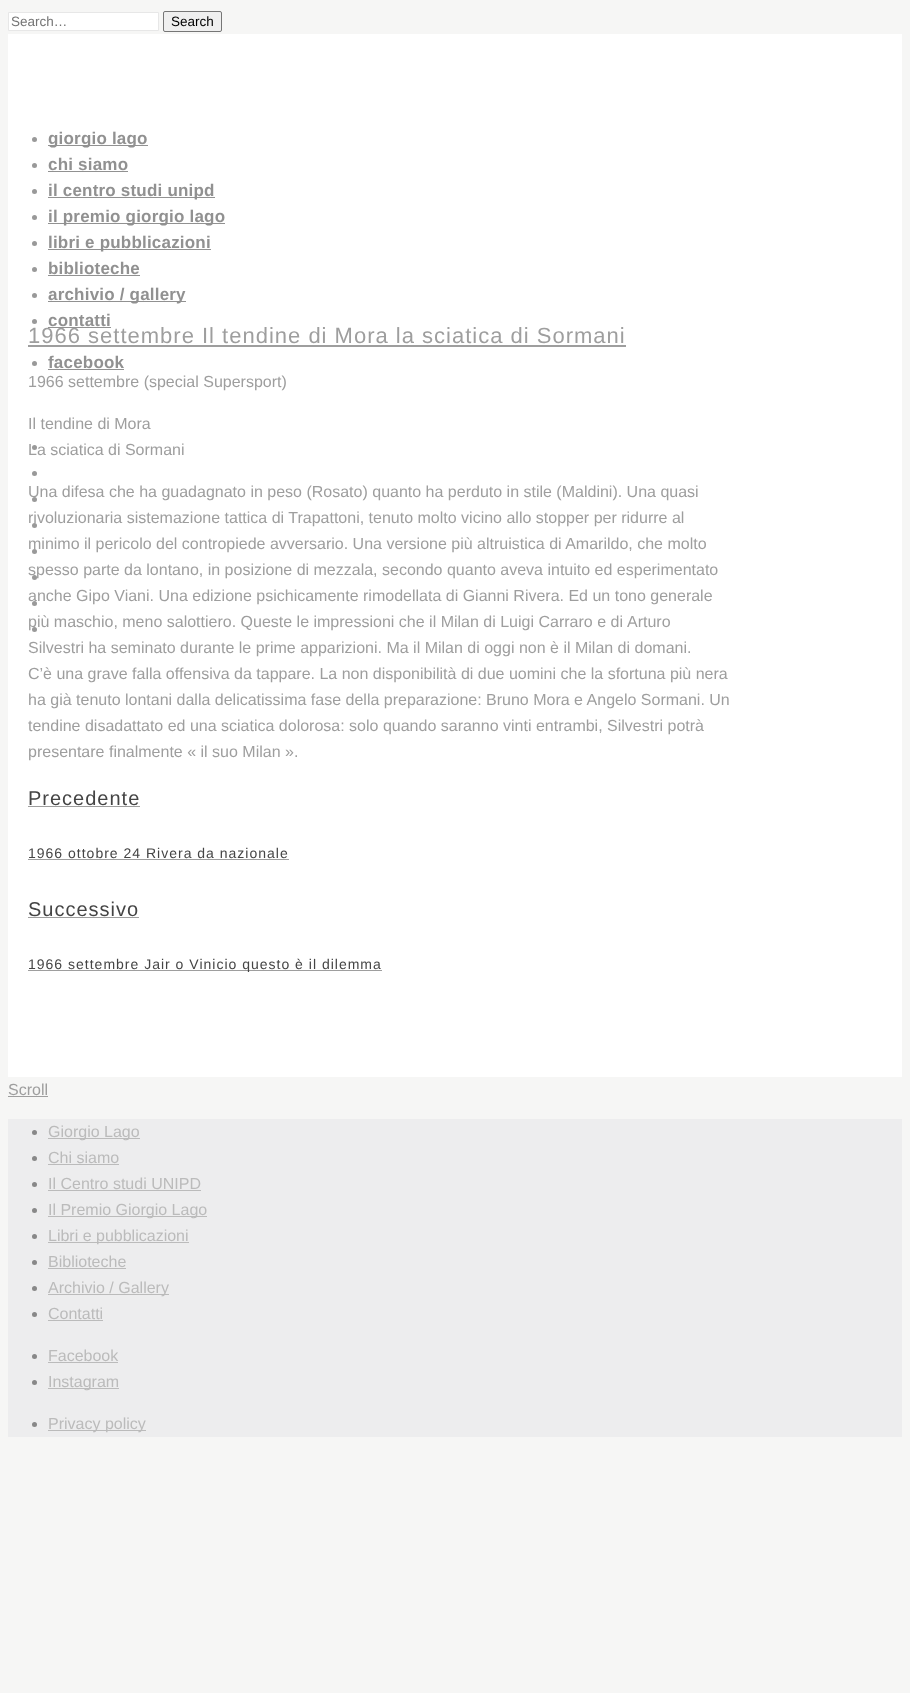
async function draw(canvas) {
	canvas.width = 910;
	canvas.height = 1693;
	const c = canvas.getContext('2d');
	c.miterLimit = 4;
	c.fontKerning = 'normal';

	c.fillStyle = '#f6f6f5';
	c.fillRect(0, 0, 910, 1693);
	c.fillStyle = '#fff';
	c.beginPath();
	c.rect(8.5, 12.5, 150, 18);
	c.fill();
	c.strokeStyle = '#e7e7e7';
	c.stroke();
	c.font = '13.5px Liberation Sans';
	c.fillStyle = '#757575';
	c.fillText('Search…', 11, 26);
	c.fillStyle = '#efefef';
	c.beginPath();
	c.roundRect(163.5, 11.5, 58, 20, 1.5);
	c.fill();
	c.strokeStyle = '#767676';
	c.stroke();
	c.fillStyle = '#000';
	c.fillText('Search', 171, 26);
	c.fillStyle = '#fff';
	c.fillRect(8, 34, 894, 1043);
	c.fillStyle = '#999';
	c.beginPath();
	c.arc(34.5, 139.5, 2.5, 0, 2 * Math.PI);
	c.fill();
	c.fillStyle = '#919191';
	c.fillRect(48, 145, 100, 1);
	c.letterSpacing = '0.2px';
	c.font = 'bold 17px Liberation Sans';
	c.fillText('giorgio lago', 48, 144);
	c.fillStyle = '#999';
	c.beginPath();
	c.arc(34.5, 165.5, 2.5, 0, 2 * Math.PI);
	c.fill();
	c.fillStyle = '#919191';
	c.fillText('chi siamo', 48, 170);
	c.fillRect(48, 171, 80, 1);
	c.fillStyle = '#999';
	c.beginPath();
	c.arc(34.5, 191.5, 2.5, 0, 2 * Math.PI);
	c.fill();
	c.fillStyle = '#919191';
	c.fillRect(48, 197, 167, 1);
	c.fillText('il centro studi unipd', 48, 196);
	c.fillStyle = '#999';
	c.beginPath();
	c.arc(34.5, 217.5, 2.5, 0, 2 * Math.PI);
	c.fill();
	c.fillStyle = '#919191';
	c.fillRect(48, 223, 177, 1);
	c.fillText('il premio giorgio lago', 48, 222);
	c.fillStyle = '#999';
	c.beginPath();
	c.arc(34.5, 243.5, 2.5, 0, 2 * Math.PI);
	c.fill();
	c.fillStyle = '#919191';
	c.fillRect(48, 249, 163, 1);
	c.fillText('libri e pubblicazioni', 48, 248);
	c.fillStyle = '#999';
	c.beginPath();
	c.arc(34.5, 269.5, 2.5, 0, 2 * Math.PI);
	c.fill();
	c.fillStyle = '#919191';
	c.fillText('biblioteche', 48, 274);
	c.fillRect(48, 275, 92, 1);
	c.fillStyle = '#999';
	c.beginPath();
	c.arc(34.5, 295.5, 2.5, 0, 2 * Math.PI);
	c.fill();
	c.fillStyle = '#919191';
	c.fillRect(48, 301, 138, 1);
	c.fillText('archivio / gallery', 48, 300);
	c.fillStyle = '#999';
	c.beginPath();
	c.arc(34.5, 321.5, 2.5, 0, 2 * Math.PI);
	c.fill();
	c.fillStyle = '#919191';
	c.fillText('contatti', 48, 326);
	c.fillRect(48, 327, 63, 1);
	c.fillStyle = '#999';
	c.beginPath();
	c.arc(34.5, 363.5, 2.5, 0, 2 * Math.PI);
	c.fill();
	c.fillStyle = '#919191';
	c.fillText('facebook', 48, 368);
	c.fillRect(48, 369, 76, 1);
	c.fillStyle = '#999';
	c.beginPath();
	c.arc(34.5, 447.5, 2.5, 0, 2 * Math.PI);
	c.fill();
	c.beginPath();
	c.arc(34.5, 473.5, 2.5, 0, 2 * Math.PI);
	c.fill();
	c.beginPath();
	c.arc(34.5, 499.5, 2.5, 0, 2 * Math.PI);
	c.fill();
	c.beginPath();
	c.arc(34.5, 525.5, 2.5, 0, 2 * Math.PI);
	c.fill();
	c.beginPath();
	c.arc(34.5, 551.5, 2.5, 0, 2 * Math.PI);
	c.fill();
	c.beginPath();
	c.arc(34.5, 577.5, 2.5, 0, 2 * Math.PI);
	c.fill();
	c.beginPath();
	c.arc(34.5, 603.5, 2.5, 0, 2 * Math.PI);
	c.fill();
	c.beginPath();
	c.arc(34.5, 629.5, 2.5, 0, 2 * Math.PI);
	c.fill();
	c.letterSpacing = '1px';
	c.font = '22px Liberation Sans';
	c.fillStyle = '#9e9e9e';
	c.fillText('1966 settembre Il tendine di Mora la sciatica di Sormani', 28, 343);
	c.fillRect(28, 345, 598, 2);
	c.letterSpacing = '0px';
	c.font = '16px Liberation Sans';
	for (const [text, x, y] of [
		['1966 settembre (special Supersport)', 28, 387],
		['Il tendine di Mora', 28, 429],
		['La sciatica di Sormani', 28, 455],
		['Una difesa che ha guadagnato in peso (Rosato) quanto ha perduto in stile (Maldini). Una quasi', 28, 497],
		['rivoluzionaria sistemazione tattica di Trapattoni, tenuto molto vicino allo stopper per ridurre al', 28, 523],
		['minimo il pericolo del contropiede avversario. Una versione più altruistica di Amarildo, che molto', 28, 549],
		['spesso parte da lontano, in posizione di mezzala, secondo quanto aveva intuito ed esperimentato', 28, 575],
		['anche Gipo Viani. Una edizione psichicamente rimodellata di Gianni Rivera. Ed un tono generale', 28, 601],
		['più maschio, meno salottiero. Queste le impressioni che il Milan di Luigi Carraro e di', 28, 627],
		['Arturo', 627, 627],
		['Silvestri ha seminato durante le prime apparizioni. Ma il Milan di oggi non è il Milan di domani.', 28, 653],
		['C’è una grave falla offensiva da tappare. La non disponibilità di due uomini che la sfortuna più nera', 28, 679],
		['ha già tenuto lontani dalla delicatissima fase della preparazione: Bruno Mora e Angelo Sormani. Un', 28, 705],
		['tendine disadattato ed una sciatica dolorosa: solo quando saranno vinti entrambi, Silvestri potrà', 28, 731],
		['presentare finalmente « il suo Milan ».', 28, 757],
	]) {
		c.fillText(text, x, y);
	}
	c.letterSpacing = '1px';
	c.font = '20px Liberation Sans';
	c.fillStyle = '#444';
	c.fillText('Precedente', 28, 805);
	c.fillStyle = '#9e9e9e';
	c.fillRect(28, 806, 112, 1);
	c.font = '14px Liberation Sans';
	c.fillStyle = '#444';
	c.fillText('1966 ottobre 24 Rivera da nazionale', 28, 858);
	c.fillStyle = '#9e9e9e';
	c.fillRect(28, 859, 261, 1);
	c.font = '20px Liberation Sans';
	c.fillStyle = '#444';
	c.fillText('Successivo', 28, 916);
	c.fillStyle = '#9e9e9e';
	c.fillRect(28, 917, 111, 1);
	c.fillRect(28, 970, 354, 1);
	c.font = '14px Liberation Sans';
	c.fillStyle = '#444';
	c.fillText('1966 settembre Jair o Vinicio questo è il dilemma', 28, 969);
	c.letterSpacing = '0px';
	c.font = '16px Liberation Sans';
	c.fillStyle = '#9e9e9e';
	c.fillText('Scroll', 8, 1095);
	c.fillRect(8, 1096, 40, 1);
	c.fillStyle = '#ededee';
	c.fillRect(8, 1119, 894, 318);
	c.fillStyle = '#888';
	c.beginPath();
	c.arc(34.5, 1132.5, 2.5, 0, 2 * Math.PI);
	c.fill();
	c.fillStyle = '#bbb';
	c.fillRect(48, 1138, 92, 1);
	c.fillText('Giorgio Lago', 48, 1137);
	c.fillStyle = '#888';
	c.beginPath();
	c.arc(34.5, 1158.5, 2.5, 0, 2 * Math.PI);
	c.fill();
	c.fillStyle = '#bbb';
	c.fillText('Chi siamo', 48, 1163);
	c.fillRect(48, 1164, 71, 1);
	c.fillStyle = '#888';
	c.beginPath();
	c.arc(34.5, 1184.5, 2.5, 0, 2 * Math.PI);
	c.fill();
	c.fillStyle = '#bbb';
	c.fillText('Il Centro studi UNIPD', 48, 1189);
	c.fillRect(48, 1190, 153, 1);
	c.fillStyle = '#888';
	c.beginPath();
	c.arc(34.5, 1210.5, 2.5, 0, 2 * Math.PI);
	c.fill();
	c.fillStyle = '#bbb';
	c.fillRect(48, 1216, 159, 1);
	c.fillText('Il Premio Giorgio Lago', 48, 1215);
	c.fillStyle = '#888';
	c.beginPath();
	c.arc(34.5, 1236.5, 2.5, 0, 2 * Math.PI);
	c.fill();
	c.fillStyle = '#bbb';
	c.fillRect(48, 1242, 141, 1);
	c.fillText('Libri e pubblicazioni', 48, 1241);
	c.fillStyle = '#888';
	c.beginPath();
	c.arc(34.5, 1262.5, 2.5, 0, 2 * Math.PI);
	c.fill();
	c.fillStyle = '#bbb';
	c.fillText('Biblioteche', 48, 1267);
	c.fillRect(48, 1268, 78, 1);
	c.fillStyle = '#888';
	c.beginPath();
	c.arc(34.5, 1288.5, 2.5, 0, 2 * Math.PI);
	c.fill();
	c.fillStyle = '#bbb';
	c.fillRect(48, 1294, 121, 1);
	c.fillText('Archivio / Gallery', 48, 1293);
	c.fillStyle = '#888';
	c.beginPath();
	c.arc(34.5, 1314.5, 2.5, 0, 2 * Math.PI);
	c.fill();
	c.fillStyle = '#bbb';
	c.fillText('Contatti', 48, 1319);
	c.fillRect(48, 1320, 55, 1);
	c.fillStyle = '#888';
	c.beginPath();
	c.arc(34.5, 1356.5, 2.5, 0, 2 * Math.PI);
	c.fill();
	c.fillStyle = '#bbb';
	c.fillText('Facebook', 48, 1361);
	c.fillRect(48, 1362, 70, 1);
	c.fillStyle = '#888';
	c.beginPath();
	c.arc(34.5, 1382.5, 2.5, 0, 2 * Math.PI);
	c.fill();
	c.fillStyle = '#bbb';
	c.fillRect(48, 1388, 71, 1);
	c.fillText('Instagram', 48, 1387);
	c.fillStyle = '#888';
	c.beginPath();
	c.arc(34.5, 1424.5, 2.5, 0, 2 * Math.PI);
	c.fill();
	c.fillStyle = '#bbb';
	c.fillRect(48, 1430, 98, 1);
	c.fillText('Privacy policy', 48, 1429);
}

draw(document.querySelector('canvas'));
